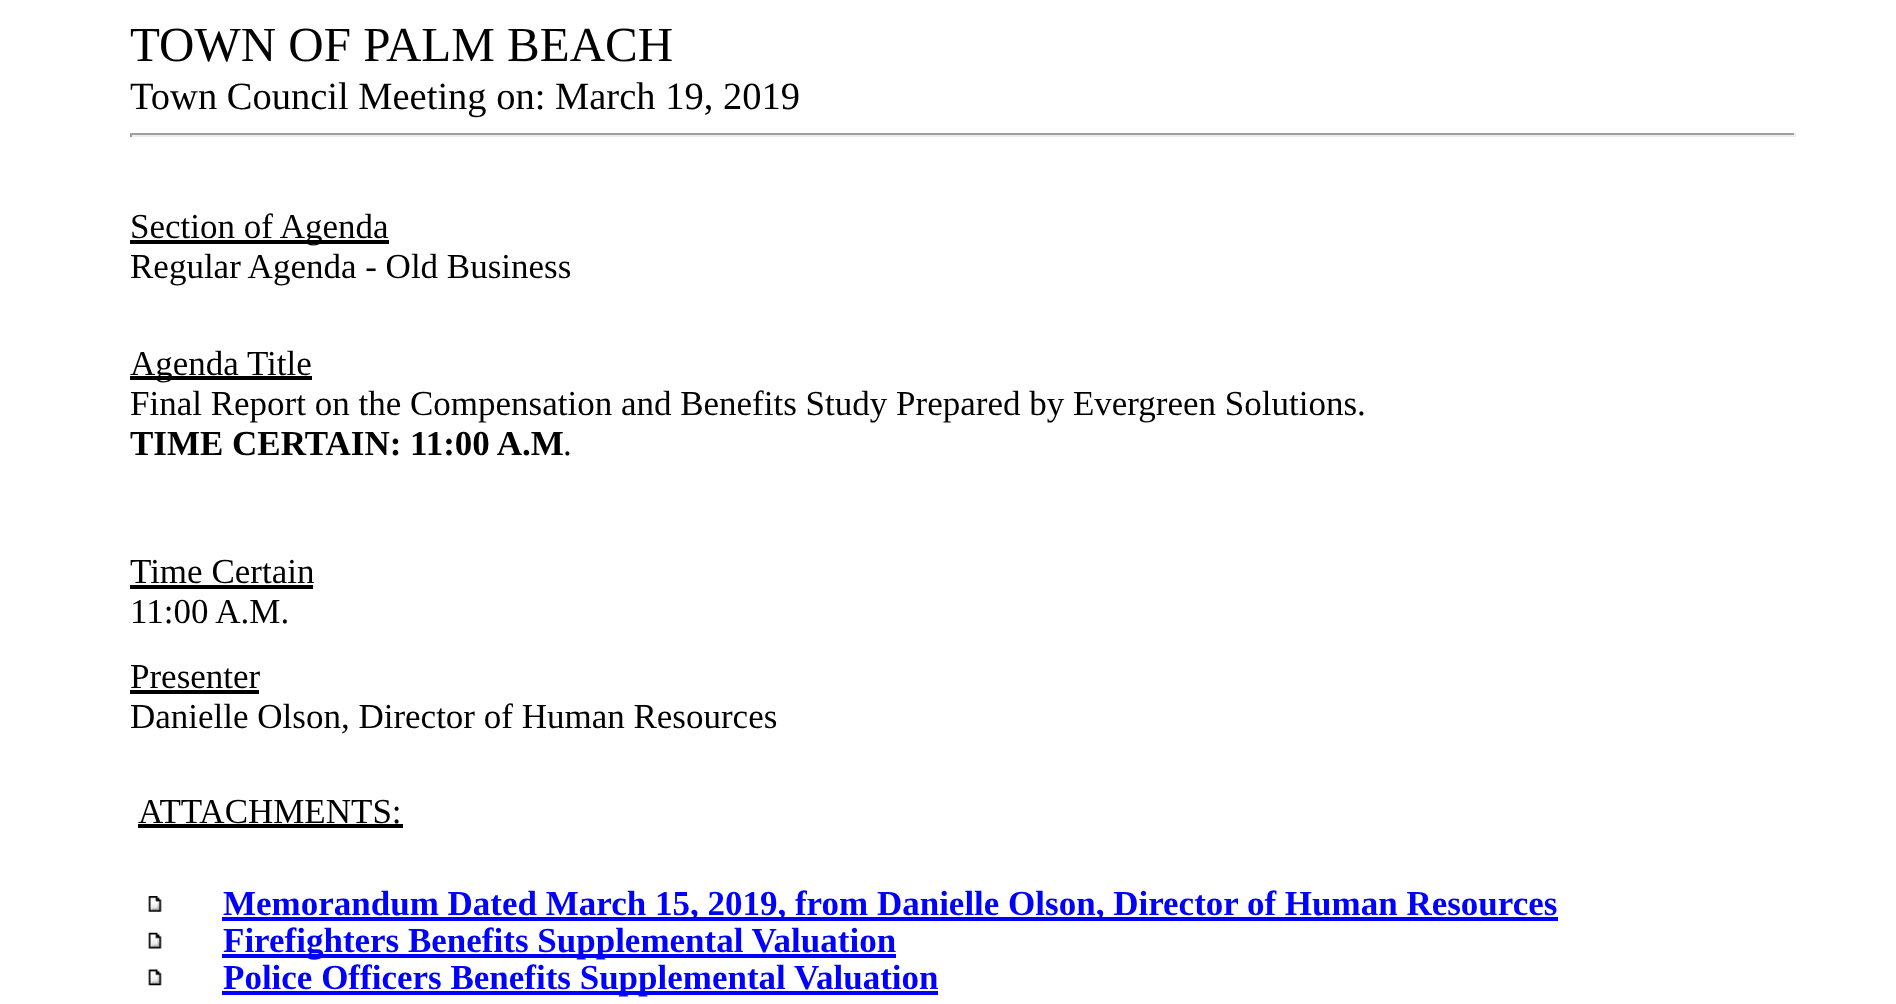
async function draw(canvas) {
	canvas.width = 1896;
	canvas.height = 1004;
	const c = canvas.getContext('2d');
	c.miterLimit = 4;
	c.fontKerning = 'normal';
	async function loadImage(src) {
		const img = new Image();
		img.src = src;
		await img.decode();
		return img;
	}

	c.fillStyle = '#fff';
	c.fillRect(0, 0, 1896, 1004);
	c.font = '49px Liberation Serif';
	c.fillStyle = '#000';
	c.fillText('TOWN OF PALM BEACH', 130, 61);
	c.font = '38.5px Liberation Serif';
	c.fillText('Town Council Meeting on: March 19, 2019', 130, 109);
	for (const [x, y, w, h, color] of [
		[130, 133, 1666, 2, '#9f9f9f'],
		[1794, 133, 2, 4, '#eee'],
		[130, 135, 1666, 2, '#eee'],
		[130, 133, 2, 4, '#9f9f9f'],
		[130, 240, 259, 4, '#000'],
	]) {
		c.fillStyle = color;
		c.fillRect(x, y, w, h);
	}
	c.font = '35px Liberation Serif';
	c.fillText('Section of Agenda', 130, 238);
	c.fillText('Regular Agenda - Old Business', 130, 278);
	c.fillRect(130, 376, 182, 4);
	c.fillText('Agenda Title', 130, 375);
	c.fillText('Final Report on the Compensation and Benefits Study Prepared by Evergreen Solutions.', 130, 415);
	c.font = 'bold 35px Liberation Serif';
	c.fillText('TIME CERTAIN: 11:00 A.M', 130, 455);
	c.font = '35px Liberation Serif';
	c.fillText('.', 563, 455);
	c.fillText('Time Certain', 130, 583);
	c.fillRect(130, 585, 183, 4);
	c.fillText('11:00 A.M.', 130, 623);
	c.fillText('Presenter', 130, 688);
	c.fillRect(130, 690, 129, 4);
	c.fillText('Danielle Olson, Director of Human Resources', 130, 728);
	c.fillText('ATTACHMENTS:', 138, 823);
	c.fillRect(138, 824, 265, 4);
	c.drawImage(await loadImage('img1.png'), 148, 896, 14, 16);
	c.fillStyle = '#00f';
	c.fillRect(222, 917, 1336, 4);
	c.font = 'bold 35px Liberation Serif';
	c.fillText('Memorandum Dated March 15, 2019, from Danielle Olson, Director of Human Resources', 223, 915);
	c.drawImage(await loadImage('img2.png'), 148, 932, 14, 17);
	c.fillRect(222, 954, 674, 4);
	c.fillText('Firefighters Benefits Supplemental Valuation', 223, 952);
	c.drawImage(await loadImage('img3.png'), 148, 969, 14, 17);
	c.fillRect(222, 991, 716, 4);
	c.fillText('Police Officers Benefits Supplemental Valuation', 223, 989);
}

draw(document.querySelector('canvas'));
